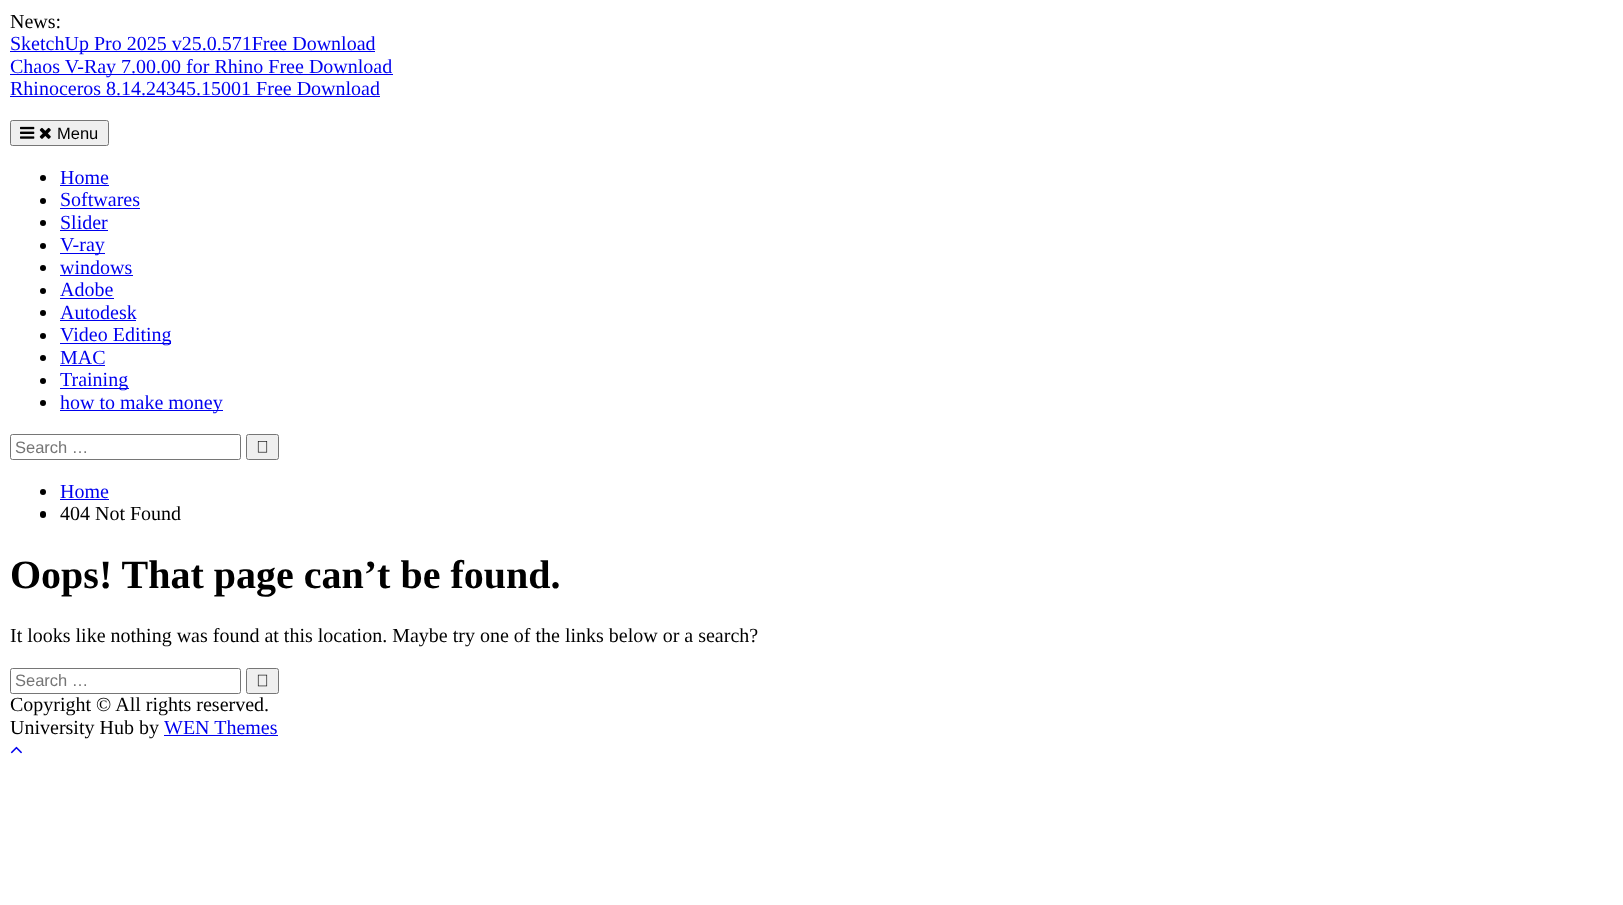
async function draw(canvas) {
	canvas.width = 1623;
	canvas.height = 905;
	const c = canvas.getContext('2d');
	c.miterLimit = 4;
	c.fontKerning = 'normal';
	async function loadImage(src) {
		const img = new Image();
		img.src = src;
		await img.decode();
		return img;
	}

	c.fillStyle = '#fff';
	c.fillRect(0, 0, 1623, 905);
	c.font = '20px Liberation Serif';
	c.fillStyle = '#000';
	c.fillText('News:', 10, 28);
	c.fillStyle = '#00e';
	c.fillRect(10, 51, 365, 1);
	c.fillText('SketchUp Pro 2025 v25.0.571Free Download', 10, 50);
	c.fillRect(10, 74, 383, 1);
	c.fillText('Chaos V-Ray 7.00.00 for Rhino Free Download', 10, 73);
	c.fillText('Rhinoceros 8.14.24345.15001 Free Download', 10, 95);
	c.fillRect(10, 96, 370, 1);
	c.fillStyle = '#efefef';
	c.beginPath();
	c.roundRect(10.5, 120.5, 98, 25, 2);
	c.fill();
	c.strokeStyle = '#767676';
	c.stroke();
	c.drawImage(await loadImage('img1.png'), 20, 126, 15, 13);
	c.drawImage(await loadImage('img2.png'), 39, 127, 12, 12);
	c.font = '16.5px Liberation Sans';
	c.fillStyle = '#000';
	c.fillText('Menu', 57, 139);
	c.beginPath();
	c.arc(43, 178, 3, 0, 2 * Math.PI);
	c.fill();
	c.font = '20px Liberation Serif';
	c.fillStyle = '#00e';
	c.fillText('Home', 60, 184);
	c.fillRect(60, 185, 49, 1);
	c.fillStyle = '#000';
	c.beginPath();
	c.arc(43, 201, 3, 0, 2 * Math.PI);
	c.fill();
	c.fillStyle = '#00e';
	c.fillText('Softwares', 60, 206);
	c.fillRect(60, 208, 80, 1);
	c.fillStyle = '#000';
	c.beginPath();
	c.arc(43, 223, 3, 0, 2 * Math.PI);
	c.fill();
	c.fillStyle = '#00e';
	c.fillText('Slider', 60, 229);
	c.fillRect(60, 230, 48, 1);
	c.fillStyle = '#000';
	c.beginPath();
	c.arc(43, 246, 3, 0, 2 * Math.PI);
	c.fill();
	c.fillStyle = '#00e';
	c.fillRect(60, 253, 45, 1);
	c.fillText('V-ray', 60, 251);
	c.fillStyle = '#000';
	c.beginPath();
	c.arc(43, 268, 3, 0, 2 * Math.PI);
	c.fill();
	c.fillStyle = '#00e';
	c.fillText('windows', 60, 274);
	c.fillRect(60, 275, 73, 1);
	c.fillStyle = '#000';
	c.beginPath();
	c.arc(43, 291, 3, 0, 2 * Math.PI);
	c.fill();
	c.fillStyle = '#00e';
	c.fillText('Adobe', 60, 296);
	c.fillRect(60, 298, 54, 1);
	c.fillStyle = '#000';
	c.beginPath();
	c.arc(43, 313, 3, 0, 2 * Math.PI);
	c.fill();
	c.fillStyle = '#00e';
	c.fillText('Autodesk', 60, 319);
	c.fillRect(60, 320, 76, 1);
	c.fillStyle = '#000';
	c.beginPath();
	c.arc(43, 336, 3, 0, 2 * Math.PI);
	c.fill();
	c.fillStyle = '#00e';
	c.fillRect(60, 343, 111, 1);
	c.fillText('Video Editing', 60, 341);
	c.fillStyle = '#000';
	c.beginPath();
	c.arc(43, 358, 3, 0, 2 * Math.PI);
	c.fill();
	c.fillStyle = '#00e';
	c.fillText('MAC', 60, 364);
	c.fillRect(60, 365, 45, 1);
	c.fillStyle = '#000';
	c.beginPath();
	c.arc(43, 381, 3, 0, 2 * Math.PI);
	c.fill();
	c.fillStyle = '#00e';
	c.fillRect(60, 388, 69, 1);
	c.fillText('Training', 60, 386);
	c.fillStyle = '#000';
	c.beginPath();
	c.arc(43, 403, 3, 0, 2 * Math.PI);
	c.fill();
	c.fillStyle = '#00e';
	c.fillRect(60, 410, 163, 1);
	c.fillText('how to make money', 60, 409);
	c.beginPath();
	c.roundRect(10.5, 434.5, 230, 25, 2);
	c.stroke();
	c.font = '16.5px Liberation Sans';
	c.fillStyle = '#757575';
	c.fillText('Search …', 15, 453);
	c.fillStyle = '#efefef';
	c.beginPath();
	c.roundRect(246.5, 434.5, 32, 25, 2);
	c.fill();
	c.stroke();
	c.drawImage(await loadImage('img3.png'), 257, 441, 11, 12);
	c.fillStyle = '#000';
	c.beginPath();
	c.arc(43, 492, 3, 0, 2 * Math.PI);
	c.fill();
	c.font = '20px Liberation Serif';
	c.fillStyle = '#00e';
	c.fillText('Home', 60, 498);
	c.fillRect(60, 499, 49, 1);
	c.fillStyle = '#000';
	c.beginPath();
	c.roundRect(40, 511, 6, 7, 3);
	c.fill();
	c.fillText('404 Not Found', 60, 520);
	c.font = 'bold 40px Liberation Serif';
	c.fillText('Oops! That page can’t be found.', 10, 588);
	c.font = '20px Liberation Serif';
	c.fillText('It looks like nothing was found at this location. Maybe try one of the links below or a search?', 10, 642);
	c.beginPath();
	c.roundRect(10.5, 668.5, 230, 25, 2);
	c.stroke();
	c.font = '16.5px Liberation Sans';
	c.fillStyle = '#757575';
	c.fillText('Search …', 15, 686);
	c.fillStyle = '#efefef';
	c.beginPath();
	c.roundRect(246.5, 668.5, 32, 25, 2);
	c.fill();
	c.stroke();
	c.drawImage(await loadImage('img4.png'), 257, 674, 11, 13);
	c.font = '20px Liberation Serif';
	c.fillStyle = '#000';
	c.fillText('Copyright © All rights reserved.', 10, 711);
	c.fillText('University Hub by', 10, 734);
	c.fillStyle = '#00e';
	c.fillText('WEN Themes', 164, 734);
	c.fillRect(164, 735, 114, 1);
	c.drawImage(await loadImage('img5.png'), 10, 746, 12, 8);
}

draw(document.querySelector('canvas'));
